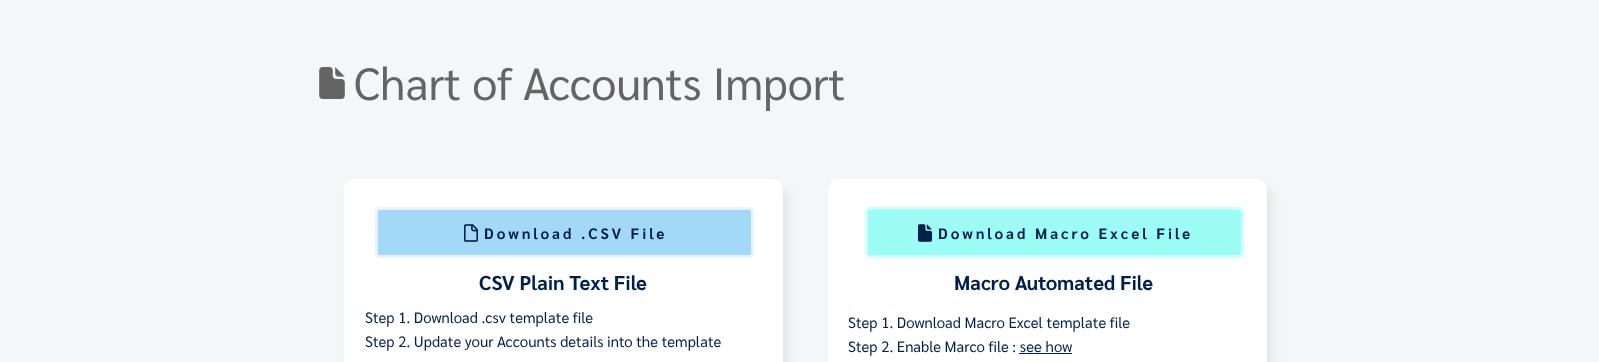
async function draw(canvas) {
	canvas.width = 1599;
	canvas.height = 362;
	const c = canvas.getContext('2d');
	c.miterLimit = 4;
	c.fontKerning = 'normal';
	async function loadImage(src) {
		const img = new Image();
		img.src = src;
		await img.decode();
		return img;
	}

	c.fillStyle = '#f5f6f7';
	c.fillRect(0, 0, 1599, 362);
	c.drawImage(await loadImage('img1.png'), 319, 67, 26, 32);
	c.font = '45px Sarabun';
	c.fillStyle = '#646464';
	c.fillText('Chart of Accounts Import', 354, 100);
	c.fillStyle = '#6464641a';
	c.filter = 'blur(5px)';
	c.beginPath();
	c.roundRect(350, 187, 439, 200, 10);
	c.fill();
	c.filter = 'none';
	c.fillStyle = '#fff';
	c.beginPath();
	c.roundRect(344, 179, 439, 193, 10);
	c.fill();
	c.fillStyle = '#a3d9f6';
	c.beginPath();
	c.roundRect(376.5, 208.5, 376, 48, 3.5);
	c.fill();
	c.strokeStyle = '#eaf2ff';
	c.lineWidth = 3;
	c.stroke();
	c.drawImage(await loadImage('img2.png'), 464, 224, 14, 18);
	c.letterSpacing = '3px';
	c.font = 'bold 15px Sarabun';
	c.fillStyle = '#00204c';
	c.fillText('Download .CSV File', 484, 239);
	c.letterSpacing = '0px';
	c.font = 'bold 20px Sarabun';
	c.fillText('CSV Plain Text File', 479, 290);
	c.font = '15px Sarabun';
	c.fillText('Step 1. Download .csv template file', 365, 323);
	c.fillText('Step 2. Update your Accounts details into the template', 365, 347);
	c.fillStyle = '#6464641a';
	c.filter = 'blur(5px)';
	c.beginPath();
	c.roundRect(834, 187, 439, 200, 10);
	c.fill();
	c.filter = 'none';
	c.fillStyle = '#fff';
	c.beginPath();
	c.roundRect(828, 179, 439, 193, 10);
	c.fill();
	c.fillStyle = '#9dfcf6';
	c.beginPath();
	c.roundRect(866.5, 208.5, 376, 48, 3.5);
	c.fill();
	c.strokeStyle = '#cdfffc';
	c.stroke();
	c.drawImage(await loadImage('img3.png'), 917, 224, 16, 18);
	c.letterSpacing = '3px';
	c.font = 'bold 15px Sarabun';
	c.fillStyle = '#00204c';
	c.fillText('Download Macro Excel File', 938, 239);
	c.letterSpacing = '0px';
	c.font = 'bold 20px Sarabun';
	c.fillText('Macro Automated File', 954, 290);
	c.font = '15px Sarabun';
	c.fillText('Step 1. Download Macro Excel template file', 848, 328);
	c.fillText('Step 2. Enable Marco file : see how', 848, 352);
	c.fillRect(1019, 353, 53, 1);
}

draw(document.querySelector('canvas'));
